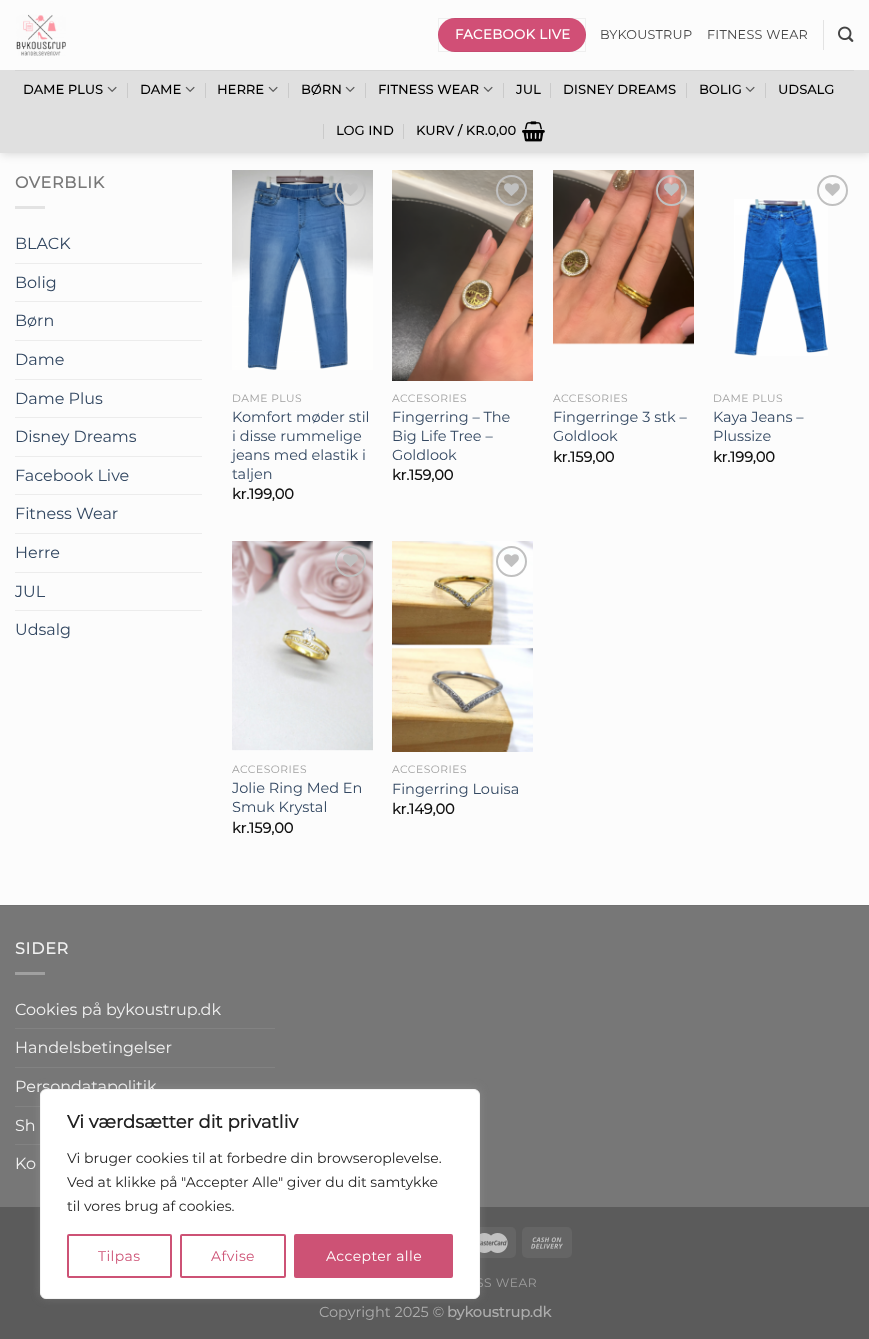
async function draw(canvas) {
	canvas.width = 869;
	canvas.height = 1339;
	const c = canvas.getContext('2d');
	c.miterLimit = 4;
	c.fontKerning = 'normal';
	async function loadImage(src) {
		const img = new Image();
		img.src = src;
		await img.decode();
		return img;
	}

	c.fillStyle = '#fcfcfc';
	c.fillRect(0, 0, 869, 1339);
	c.fillStyle = '#00000026';
	c.filter = 'blur(5px)';
	c.beginPath();
	c.rect(1, 1, 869, 153);
	c.fill();
	c.filter = 'none';
	c.fillStyle = '#fcfcfc';
	c.fillRect(0, 0, 869, 70);
	c.drawImage(await loadImage('img1.png'), 16, 14, 50, 42);
	c.fillStyle = '#d14f76';
	c.beginPath();
	c.roundRect(438, 18, 148, 34, 17);
	c.fill();
	c.strokeStyle = '#0000000d';
	c.strokeRect(438.5, 18.5, 147, 33);
	c.letterSpacing = '0.4px';
	c.font = 'bold 13.25px Montserrat';
	c.fillStyle = '#fff';
	c.fillText('FACEBOOK LIVE', 455, 39);
	c.letterSpacing = '0.25px';
	c.font = '100 12.75px Montserrat';
	c.fillStyle = '#444';
	c.fillText('BYKOUSTRUP', 600, 39);
	c.fillText('FITNESS WEAR', 707, 39);
	c.fillStyle = '#e3e3e3';
	c.fillRect(823, 20, 1, 30);
	c.drawImage(await loadImage('img2.png'), 838, 26, 16, 16);
	c.fillStyle = '#e0e0e0';
	c.fillRect(0, 70, 869, 83);
	c.fillStyle = '#d5d5d5';
	c.fillRect(15, 70, 839, 1);
	c.font = 'bold 12.75px Montserrat';
	c.fillStyle = '#000';
	c.fillText('DAME PLUS', 23, 94);
	c.drawImage(await loadImage('img3.png'), 107, 86, 10, 6);
	c.fillStyle = '#cacaca';
	c.fillRect(127, 83, 1, 15);
	c.fillStyle = '#000';
	c.fillText('DAME', 140, 94);
	c.drawImage(await loadImage('img3.png'), 185, 86, 10, 6);
	c.fillStyle = '#cacaca';
	c.fillRect(205, 83, 1, 15);
	c.fillStyle = '#000';
	c.fillText('HERRE', 217, 94);
	c.drawImage(await loadImage('img3.png'), 268, 86, 10, 6);
	c.fillStyle = '#cacaca';
	c.fillRect(288, 83, 1, 15);
	c.fillStyle = '#000';
	c.fillText('BØRN', 301, 94);
	c.drawImage(await loadImage('img3.png'), 345, 86, 10, 6);
	c.fillStyle = '#cacaca';
	c.fillRect(365, 83, 1, 15);
	c.fillStyle = '#000';
	c.fillText('FITNESS WEAR', 378, 94);
	c.drawImage(await loadImage('img3.png'), 483, 86, 10, 6);
	c.fillStyle = '#cacaca';
	c.fillRect(503, 83, 1, 15);
	c.fillStyle = '#000';
	c.fillText('JUL', 516, 94);
	c.fillStyle = '#cacaca';
	c.fillRect(550, 83, 1, 15);
	c.fillStyle = '#000';
	c.fillText('DISNEY DREAMS', 563, 94);
	c.fillStyle = '#cacaca';
	c.fillRect(686, 83, 1, 15);
	c.fillStyle = '#000';
	c.fillText('BOLIG', 699, 94);
	c.drawImage(await loadImage('img3.png'), 745, 86, 10, 6);
	c.fillStyle = '#cacaca';
	c.fillRect(765, 83, 1, 15);
	c.fillStyle = '#000';
	c.fillText('UDSALG', 778, 94);
	c.fillStyle = '#cacaca';
	c.fillRect(323, 124, 1, 15);
	c.fillStyle = '#000';
	c.fillText('LOG IND', 336, 135);
	c.fillStyle = '#cacaca';
	c.fillRect(403, 124, 1, 15);
	c.fillStyle = '#000';
	c.fillText('KURV / KR.0,00', 416, 135);
	c.drawImage(await loadImage('img4.png'), 522, 121, 23, 21);
	c.letterSpacing = '0.75px';
	c.font = 'bold 16px Montserrat';
	c.fillStyle = '#777';
	c.fillText('OVERBLIK', 15, 188);
	c.fillStyle = '#e3e3e3';
	c.fillRect(15, 206, 30, 3);
	c.letterSpacing = '0px';
	c.font = '100 16px Montserrat';
	c.fillStyle = '#334862';
	c.fillText('BLACK', 15, 249);
	c.fillStyle = '#ececec';
	c.fillRect(15, 263, 187, 1);
	c.fillStyle = '#334862';
	c.fillText('Bolig', 15, 288);
	c.fillStyle = '#ececec';
	c.fillRect(15, 301, 187, 1);
	c.fillStyle = '#334862';
	c.fillText('Børn', 15, 326);
	c.fillStyle = '#ececec';
	c.fillRect(15, 340, 187, 1);
	c.fillStyle = '#334862';
	c.fillText('Dame', 15, 365);
	c.fillStyle = '#ececec';
	c.fillRect(15, 379, 187, 1);
	c.fillStyle = '#334862';
	c.fillText('Dame Plus', 15, 404);
	c.fillStyle = '#ececec';
	c.fillRect(15, 417, 187, 1);
	c.fillStyle = '#334862';
	c.fillText('Disney Dreams', 15, 442);
	c.fillStyle = '#ececec';
	c.fillRect(15, 456, 187, 1);
	c.fillStyle = '#334862';
	c.fillText('Facebook Live', 15, 481);
	c.fillStyle = '#ececec';
	c.fillRect(15, 494, 187, 1);
	c.fillStyle = '#334862';
	c.fillText('Fitness Wear', 15, 519);
	c.fillStyle = '#ececec';
	c.fillRect(15, 533, 187, 1);
	c.fillStyle = '#334862';
	c.fillText('Herre', 15, 558);
	c.fillStyle = '#ececec';
	c.fillRect(15, 572, 187, 1);
	c.fillStyle = '#334862';
	c.fillText('JUL', 15, 597);
	c.fillStyle = '#ececec';
	c.fillRect(15, 610, 187, 1);
	c.fillStyle = '#334862';
	c.fillText('Udsalg', 15, 635);
	c.drawImage(await loadImage('img5.png'), 232, 170, 141, 200);
	c.beginPath();
	c.arc(350.5, 190.5, 14.5, 0, 2 * Math.PI);
	c.strokeStyle = '#c0c0c0';
	c.lineWidth = 2;
	c.stroke();
	c.drawImage(await loadImage('img6.png'), 343, 183, 15, 13);
	c.letterSpacing = '0.5px';
	c.font = '100 10.75px Montserrat';
	c.fillStyle = '#9f9f9f';
	c.fillText('DAME PLUS', 232, 402);
	c.letterSpacing = '0px';
	c.font = '100 14.5px Montserrat';
	c.fillStyle = '#334862';
	for (const [text, x, y] of [
		['Komfort møder stil', 232, 422],
		['i disse rummelige', 232, 441],
		['jeans med elastik i', 232, 460],
		['taljen', 232, 479],
	]) {
		c.fillText(text, x, y);
	}
	c.font = 'bold 14.5px Montserrat';
	c.fillStyle = '#111';
	c.fillText('kr.199,00', 232, 499);
	c.drawImage(await loadImage('img7.png'), 392, 170, 141, 211);
	c.beginPath();
	c.arc(511.5, 190.5, 14.5, 0, 2 * Math.PI);
	c.stroke();
	c.drawImage(await loadImage('img8.png'), 504, 183, 15, 13);
	c.letterSpacing = '0.5px';
	c.font = '100 10.75px Montserrat';
	c.fillStyle = '#9f9f9f';
	c.fillText('ACCESORIES', 392, 402);
	c.letterSpacing = '0px';
	c.font = '100 14.5px Montserrat';
	c.fillStyle = '#334862';
	for (const [text, x, y] of [
		['Fingerring – The', 392, 422],
		['Big Life Tree –', 392, 441],
		['Goldlook', 392, 460],
	]) {
		c.fillText(text, x, y);
	}
	c.font = 'bold 14.5px Montserrat';
	c.fillStyle = '#111';
	c.fillText('kr.159,00', 392, 480);
	c.drawImage(await loadImage('img9.png'), 553, 170, 141, 175);
	c.beginPath();
	c.arc(671.5, 190.5, 14.5, 0, 2 * Math.PI);
	c.stroke();
	c.drawImage(await loadImage('img10.png'), 664, 183, 15, 13);
	c.letterSpacing = '0.5px';
	c.font = '100 10.75px Montserrat';
	c.fillStyle = '#9f9f9f';
	c.fillText('ACCESORIES', 553, 402);
	c.letterSpacing = '0px';
	c.font = '100 14.5px Montserrat';
	c.fillStyle = '#334862';
	c.fillText('Fingerringe 3 stk –', 553, 422);
	c.fillText('Goldlook', 553, 441);
	c.font = 'bold 14.5px Montserrat';
	c.fillStyle = '#111';
	c.fillText('kr.159,00', 553, 462);
	c.drawImage(await loadImage('img12.png'), 734, 199, 94, 157);
	c.beginPath();
	c.arc(832.5, 190.5, 14.5, 0, 2 * Math.PI);
	c.stroke();
	c.drawImage(await loadImage('img11.png'), 825, 183, 15, 13);
	c.letterSpacing = '0.5px';
	c.font = '100 10.75px Montserrat';
	c.fillStyle = '#9f9f9f';
	c.fillText('DAME PLUS', 713, 402);
	c.letterSpacing = '0px';
	c.font = '100 14.5px Montserrat';
	c.fillStyle = '#334862';
	c.fillText('Kaya Jeans –', 713, 422);
	c.fillText('Plussize', 713, 441);
	c.font = 'bold 14.5px Montserrat';
	c.fillStyle = '#111';
	c.fillText('kr.199,00', 713, 462);
	c.drawImage(await loadImage('img13.png'), 232, 541, 141, 210);
	c.beginPath();
	c.arc(350.5, 561.5, 14.5, 0, 2 * Math.PI);
	c.stroke();
	c.drawImage(await loadImage('img14.png'), 343, 554, 15, 13);
	c.letterSpacing = '0.5px';
	c.font = '100 10.75px Montserrat';
	c.fillStyle = '#9f9f9f';
	c.fillText('ACCESORIES', 232, 773);
	c.letterSpacing = '0px';
	c.font = '100 14.5px Montserrat';
	c.fillStyle = '#334862';
	c.fillText('Jolie Ring Med En', 232, 793);
	c.fillText('Smuk Krystal', 232, 812);
	c.font = 'bold 14.5px Montserrat';
	c.fillStyle = '#111';
	c.fillText('kr.159,00', 232, 833);
	c.drawImage(await loadImage('img15.png'), 392, 541, 141, 211);
	c.beginPath();
	c.arc(511.5, 561.5, 14.5, 0, 2 * Math.PI);
	c.stroke();
	c.drawImage(await loadImage('img16.png'), 504, 554, 15, 13);
	c.letterSpacing = '0.5px';
	c.font = '100 10.75px Montserrat';
	c.fillStyle = '#9f9f9f';
	c.fillText('ACCESORIES', 392, 773);
	c.letterSpacing = '0px';
	c.font = '100 14.5px Montserrat';
	c.fillStyle = '#334862';
	c.fillText('Fingerring Louisa', 392, 794);
	c.font = 'bold 14.5px Montserrat';
	c.fillStyle = '#111';
	c.fillText('kr.149,00', 392, 814);
	c.fillStyle = '#777';
	c.fillRect(0, 906, 869, 301);
	c.fillStyle = '#717171';
	c.fillRect(0, 905, 869, 1);
	c.letterSpacing = '0.75px';
	c.font = 'bold 16px Montserrat';
	c.fillStyle = '#f1f1f1';
	c.fillText('SIDER', 15, 954);
	c.fillStyle = '#a0a0a0';
	c.fillRect(15, 972, 30, 3);
	c.letterSpacing = '0px';
	c.font = '100 16px Montserrat';
	c.fillStyle = '#f1f1f1';
	c.fillText('Cookies på bykoustrup.dk', 15, 1015);
	c.fillStyle = '#828282';
	c.fillRect(15, 1028, 260, 1);
	c.fillStyle = '#f1f1f1';
	c.fillText('Handelsbetingelser', 15, 1053);
	c.fillStyle = '#828282';
	c.fillRect(15, 1067, 260, 1);
	c.fillStyle = '#f1f1f1';
	c.fillText('Persondatapolitik', 15, 1092);
	c.fillStyle = '#828282';
	c.fillRect(15, 1106, 25, 1);
	c.fillStyle = '#f1f1f1';
	c.fillText('Sh', 15, 1131);
	c.fillStyle = '#828282';
	c.fillRect(15, 1144, 25, 1);
	c.fillStyle = '#f1f1f1';
	c.fillText('Ko', 15, 1169);
	c.fillStyle = '#5b5b5b';
	c.fillRect(0, 1207, 869, 132);
	c.fillStyle = '#656565';
	c.beginPath();
	c.roundRect(466, 1227, 50, 31, 5);
	c.fill();
	c.drawImage(await loadImage('img17.png'), 480, 1233, 28, 20);
	c.beginPath();
	c.roundRect(522, 1227, 50, 31, 5);
	c.fill();
	c.drawImage(await loadImage('img18.png'), 531, 1237, 32, 12);
	c.letterSpacing = '0.5px';
	c.font = '100 12.25px Montserrat';
	c.fillStyle = '#9f9f9f';
	c.fillText('SS WEAR', 476, 1287);
	c.letterSpacing = '0px';
	c.font = '100 14.5px Montserrat';
	c.fillStyle = '#adadad';
	c.fillText('Copyright 2025 ©', 319, 1317);
	c.font = 'bold 14.5px Montserrat';
	c.fillText('bykoustrup.dk', 447, 1317);
	c.fillStyle = '#acabab4d';
	c.filter = 'blur(5px)';
	c.beginPath();
	c.roundRect(40, 1088, 440, 210, 6);
	c.fill();
	c.filter = 'none';
	c.fillStyle = '#fff';
	c.beginPath();
	c.roundRect(40.5, 1089.5, 439, 209, 5.5);
	c.fill();
	c.strokeStyle = '#f4f4f4';
	c.lineWidth = 1;
	c.stroke();
	c.font = 'bold 18px Montserrat';
	c.fillStyle = '#212121';
	c.fillText('Vi værdsætter dit privatliv', 67, 1128);
	c.font = '100 14px Montserrat';
	for (const [text, x, y] of [
		['Vi bruger cookies til at forbedre din browseroplevelse.', 67, 1163],
		['Ved at klikke på "Accepter Alle" giver du dit samtykke', 67, 1187],
		['til vores brug af cookies.', 67, 1211],
	]) {
		c.fillText(text, x, y);
	}
	c.beginPath();
	c.roundRect(68, 1235, 103, 42, 1);
	c.strokeStyle = '#cd5275';
	c.lineWidth = 2;
	c.stroke();
	c.letterSpacing = '0.4px';
	c.fillStyle = '#cd5275';
	c.fillText('Tilpas', 98, 1261);
	c.beginPath();
	c.roundRect(181, 1235, 104, 42, 1);
	c.stroke();
	c.fillText('Afvise', 211, 1261);
	c.beginPath();
	c.roundRect(295, 1235, 157, 42, 1);
	c.fill();
	c.stroke();
	c.fillStyle = '#fff';
	c.fillText('Accepter alle', 326, 1261);
}

draw(document.querySelector('canvas'));
